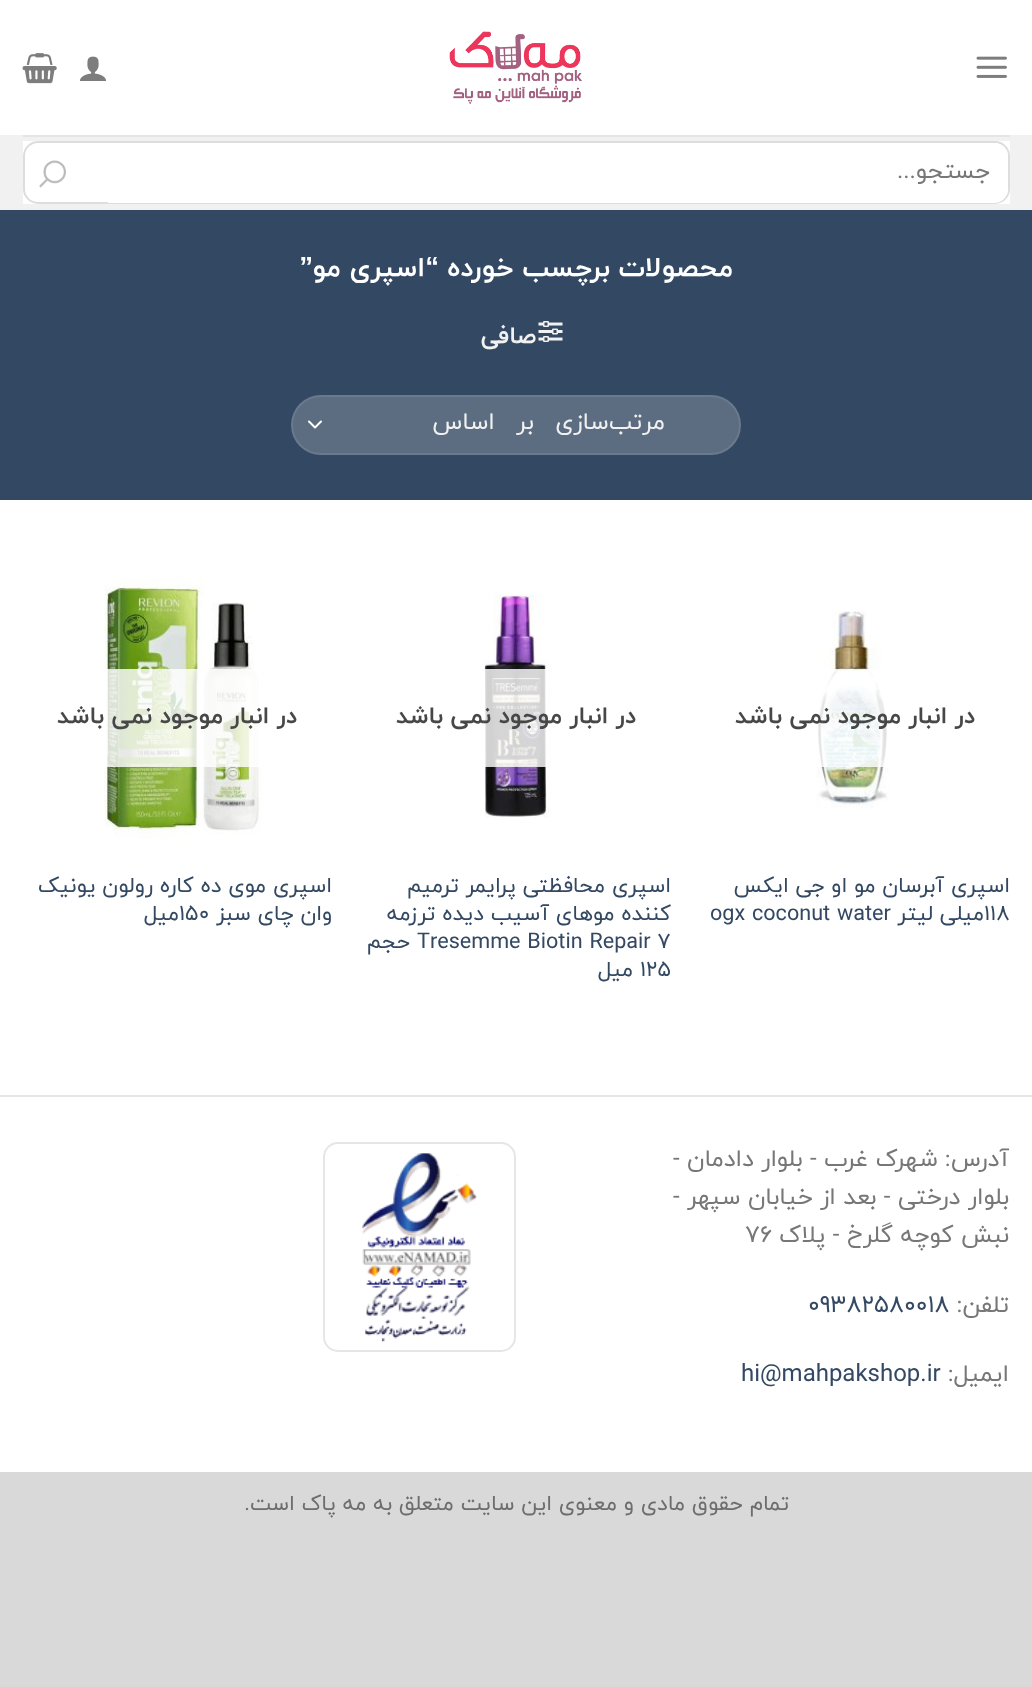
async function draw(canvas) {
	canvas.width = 1032;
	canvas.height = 1687;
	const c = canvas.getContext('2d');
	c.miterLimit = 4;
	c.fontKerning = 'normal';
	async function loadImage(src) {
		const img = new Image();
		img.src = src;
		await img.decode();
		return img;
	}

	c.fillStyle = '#d9d9d9';
	c.fillRect(0, 0, 1032, 1687);
	c.fillStyle = '#fff';
	c.fillRect(0, 0, 1032, 1472);
	c.drawImage(await loadImage('img1.png'), 976, 56, 31, 22);
	c.drawImage(await loadImage('img2.png'), 449, 31, 133, 73);
	c.drawImage(await loadImage('img3.png'), 79, 56, 28, 25);
	c.drawImage(await loadImage('img4.png'), 22, 53, 35, 31);
	for (const [x, y, w, h, color] of [
		[0, 135, 1032, 75, '#f1f1f1'],
		[23, 135, 987, 2, '#e5e5e5'],
		[23, 141, 987, 63, '#fff'],
	]) {
		c.fillStyle = color;
		c.fillRect(x, y, w, h);
	}
	c.beginPath();
	c.roundRect(24, 142, 985, 61, 14);
	c.strokeStyle = '#ddd';
	c.lineWidth = 2;
	c.stroke();
	c.beginPath();
	c.roundRect(108, 143, 900, 60, [0, 14, 14, 0]);
	c.fill();
	c.direction = 'rtl';
	c.font = '24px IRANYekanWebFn';
	c.fillStyle = '#777';
	c.fillText('جستجو...', 990, 178);
	c.drawImage(await loadImage('img5.png'), 39, 160, 27, 28);
	c.fillStyle = '#334863';
	c.fillRect(0, 210, 1032, 290);
	c.font = 'bold 27.6px IRANYekanWebFn';
	c.fillStyle = '#fff';
	c.fillText('محصولات برچسب خورده', 733, 276);
	c.font = 'bold 27.6px Liberation Sans';
	c.fillText('“', 439, 276);
	c.font = 'bold 27.6px IRANYekanWebFn';
	c.fillText('اسپری مو', 425, 276);
	c.font = 'bold 27.6px Liberation Sans';
	c.fillText('”', 313, 276);
	c.drawImage(await loadImage('img6.png'), 538, 321, 25, 21);
	c.letterSpacing = '1px';
	c.font = 'bold 24px IRANYekanWebFn';
	c.fillStyle = '#f1f1f1';
	c.fillText('صافی', 536, 343);
	c.fillStyle = '#5c6d82';
	c.beginPath();
	c.roundRect(291, 395, 450, 60, 30);
	c.fill();
	c.beginPath();
	c.moveTo(309, 421.5);
	c.lineTo(315, 427.5);
	c.lineTo(321, 421.5);
	c.strokeStyle = '#fff';
	c.lineCap = 'round';
	c.lineJoin = 'round';
	c.stroke();
	c.beginPath();
	c.roundRect(292, 396, 448, 58, 29);
	c.strokeStyle = '#ffffff17';
	c.lineJoin = 'miter';
	c.stroke();
	c.letterSpacing = '0px';
	c.wordSpacing = '14px';
	c.font = '24px IRANYekanWebFn';
	c.fillStyle = '#f1f1f1';
	c.fillText('مرتب‌سازی بر اساس', 665, 429);
	c.drawImage(await loadImage('img7.png'), 816, 611, 74, 198);
	c.fillStyle = '#ffffffcf';
	c.fillRect(816, 669, 74, 98);
	c.wordSpacing = '0px';
	c.font = 'bold 24px IRANYekanWebFn';
	c.fillStyle = '#474747';
	c.fillText('در انبار موجود نمی باشد', 975, 723);
	c.font = '21.6px IRANYekanWebFn';
	c.fillStyle = '#334862';
	c.fillText('اسپری آبرسان مو او جی ایکس', 1010, 892);
	c.direction = 'ltr';
	c.fillText('118', 984, 920);
	c.direction = 'rtl';
	c.fillText('میلی لیتر', 984, 920);
	c.direction = 'ltr';
	c.fillText('ogx coconut water', 710, 920);
	c.drawImage(await loadImage('img8.png'), 484, 594, 67, 224);
	c.fillStyle = '#ffffffcf';
	c.fillRect(484, 669, 64, 98);
	c.direction = 'rtl';
	c.font = 'bold 24px IRANYekanWebFn';
	c.fillStyle = '#474747';
	c.fillText('در انبار موجود نمی باشد', 636, 723);
	c.font = '21.6px IRANYekanWebFn';
	c.fillStyle = '#334862';
	c.fillText('اسپری محافظتی پرایمر ترمیم', 671, 892);
	c.fillText('کننده موهای آسیب دیده ترزمه', 671, 920);
	c.direction = 'ltr';
	c.fillText('Tresemme Biotin Repair 7', 417, 948);
	c.direction = 'rtl';
	c.fillText('حجم', 410, 948);
	c.direction = 'ltr';
	c.fillText('125', 640, 976);
	c.direction = 'rtl';
	c.fillText('میل', 633, 976);
	c.drawImage(await loadImage('img9.png'), 104, 578, 158, 261);
	c.fillStyle = '#ffffffcf';
	c.fillRect(104, 669, 157, 98);
	c.font = 'bold 24px IRANYekanWebFn';
	c.fillStyle = '#474747';
	c.fillText('در انبار موجود نمی باشد', 297, 723);
	c.font = '21.6px IRANYekanWebFn';
	c.fillStyle = '#334862';
	c.fillText('اسپری موی ده کاره رولون یونیک', 332, 892);
	c.fillText('وان چای سبز', 332, 920);
	c.direction = 'ltr';
	c.fillText('150', 179, 920);
	c.direction = 'rtl';
	c.fillText('میل', 179, 920);
	c.fillStyle = '#e6e6e6';
	c.fillRect(0, 1095, 1032, 2);
	c.font = '24px IRANYekanWebFn';
	c.fillStyle = '#777';
	for (const [text, x, y] of [
		['آدرس:', 1009, 1166],
		['شهرک غرب - بلوار دادمان -', 938, 1166],
		['بلوار درختی - بعد از خیابان سپهر -', 1009, 1204],
		['نبش کوچه گلرخ - پلاک', 1009, 1242],
	]) {
		c.fillText(text, x, y);
	}
	c.direction = 'ltr';
	c.fillText('۷۶', 745, 1242);
	c.direction = 'rtl';
	c.fillText('تلفن:', 1009, 1312);
	c.direction = 'ltr';
	c.fillStyle = '#334862';
	c.fillText('09382580018', 808, 1312);
	c.direction = 'rtl';
	c.fillStyle = '#777';
	c.fillText('ایمیل:', 1009, 1381);
	c.direction = 'ltr';
	c.fillStyle = '#334862';
	c.fillText('hi@mahpakshop.ir', 741, 1381);
	c.beginPath();
	c.roundRect(324, 1143, 191, 208, 14);
	c.strokeStyle = '#e6e6e6';
	c.stroke();
	c.drawImage(await loadImage('img10.png'), 362, 1153, 115, 189);
	c.direction = 'rtl';
	c.font = '21.6px IRANYekanWebFn';
	c.fillStyle = '#6d6d6d';
	c.fillText('تمام حقوق مادی و معنوی این سایت متعلق به مه پاک است.', 789, 1510);
}

draw(document.querySelector('canvas'));
